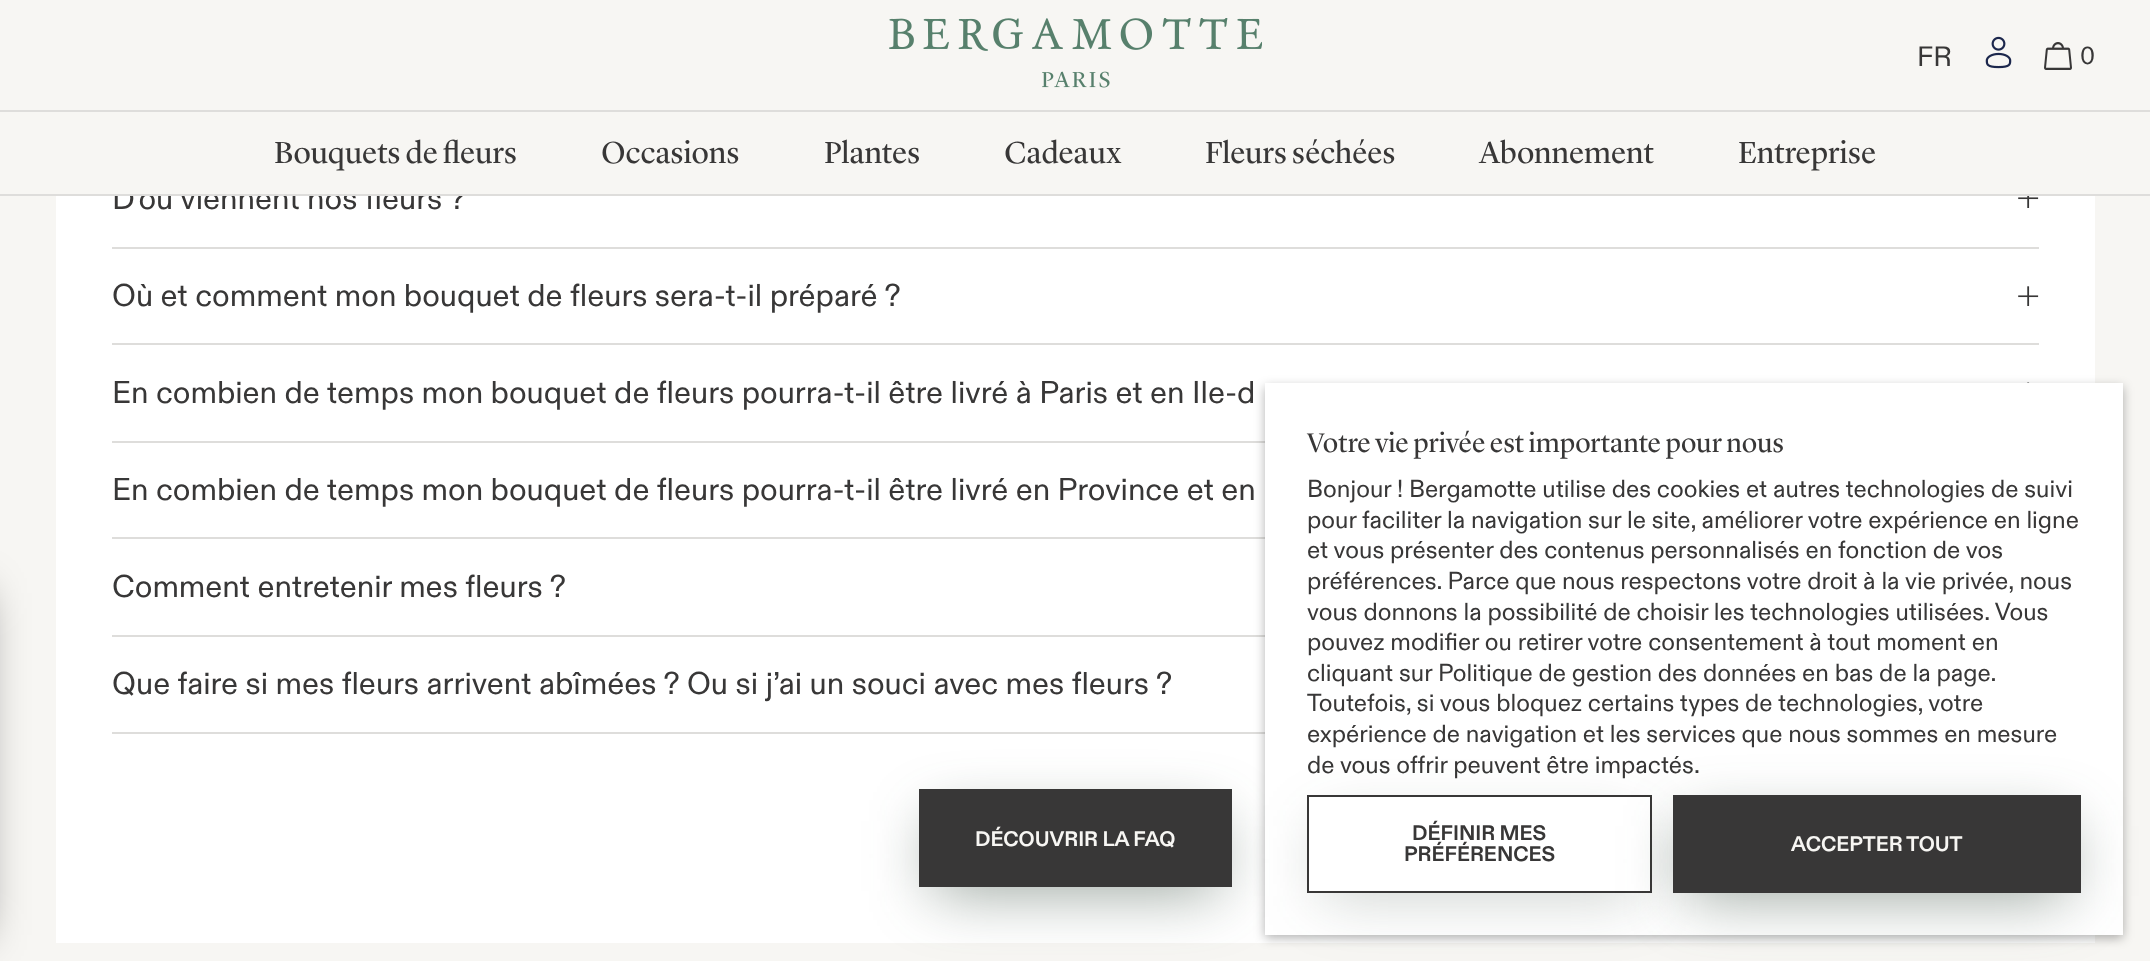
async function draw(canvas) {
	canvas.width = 2150;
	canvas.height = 961;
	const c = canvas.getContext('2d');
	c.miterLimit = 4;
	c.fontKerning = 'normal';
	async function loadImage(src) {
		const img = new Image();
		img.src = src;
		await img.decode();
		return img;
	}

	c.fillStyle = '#f7f6f3';
	c.fillRect(0, 0, 2150, 961);
	c.fillStyle = '#dedddb';
	c.fillRect(0, 110, 2150, 2);
	c.drawImage(await loadImage('img1.png'), 889, 18, 373, 70);
	c.font = '28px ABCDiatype';
	c.fillStyle = '#383737';
	c.fillText('FR', 1917, 66);
	c.drawImage(await loadImage('img2.png'), 1985, 36, 27, 33);
	c.drawImage(await loadImage('img3.png'), 2044, 42, 28, 28);
	c.font = '24.5px ABCDiatype';
	c.fillText('0', 2080, 64);
	c.fillStyle = '#fff';
	c.fillRect(56, 196, 2039, 747);
	c.font = '31.5px ABCDiatype';
	c.fillStyle = '#383737';
	c.fillText('D\'où viennent nos fleurs ?', 112, 209);
	c.fillStyle = '#f7f6f3';
	c.fillRect(114, 186, 351, 8);
	c.fillStyle = '#dedddb';
	c.fillRect(0, 194, 2150, 2);
	c.font = '31.5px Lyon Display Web';
	c.fillStyle = '#383737';
	for (const [text, x, y] of [
		['Bouquets de fleurs', 274, 163],
		['Occasions', 601, 163],
		['Plantes', 824, 163],
		['Cadeaux', 1004, 163],
		['Fleurs séchées', 1205, 163],
		['Abonnement', 1479, 163],
		['Entreprise', 1738, 163],
	]) {
		c.fillText(text, x, y);
	}
	c.fillStyle = '#00000080';
	c.filter = 'blur(22.5px)';
	c.beginPath();
	c.rect(-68, 593, 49, 342);
	c.fill();
	c.filter = 'none';
	c.fillStyle = '#dedddb';
	c.fillRect(112, 247, 1927, 2);
	c.drawImage(await loadImage('img4.png'), 2018, 196, 21, 12);
	c.fillRect(112, 343, 1927, 2);
	c.font = '31.5px ABCDiatype';
	c.fillStyle = '#383737';
	c.fillText('Où et comment mon bouquet de fleurs sera-t-il préparé ?', 112, 306);
	c.drawImage(await loadImage('img5.png'), 2018, 286, 21, 20);
	c.fillStyle = '#dedddb';
	c.fillRect(112, 441, 1153, 2);
	c.fillStyle = '#383737';
	c.fillText('En combien de temps mon bouquet de fleurs pourra-t-il être livré à Paris et en Ile-d', 112, 403);
	c.drawImage(await loadImage('img6.png'), 2027, 382, 3, 1);
	c.fillStyle = '#dedddb';
	c.fillRect(112, 537, 1153, 2);
	c.fillStyle = '#383737';
	c.fillText('En combien de temps mon bouquet de fleurs pourra-t-il être livré en Province et en', 112, 500);
	c.fillStyle = '#dedddb';
	c.fillRect(112, 635, 1153, 2);
	c.fillStyle = '#383737';
	c.fillText('Comment entretenir mes fleurs ?', 112, 597);
	c.fillStyle = '#dedddb';
	c.fillRect(112, 732, 1153, 2);
	c.fillStyle = '#383737';
	c.fillText('Que faire si mes fleurs arrivent abîmées ? Ou si j’ai un souci avec mes fleurs ?', 112, 694);
	c.fillStyle = '#30453880';
	c.filter = 'blur(31.5px)';
	c.beginPath();
	c.rect(933, 821, 285, 70);
	c.fill();
	c.filter = 'none';
	c.fillStyle = '#383737';
	c.fillRect(919, 789, 313, 98);
	c.font = 'bold 21px ABCDiatype';
	c.fillStyle = '#f7f6f3';
	c.fillText('DÉCOUVRIR LA FAQ', 975, 846);
	c.fillStyle = '#0000004d';
	c.filter = 'blur(5.5px)';
	c.beginPath();
	c.rect(1265, 387, 858, 551);
	c.fill();
	c.filter = 'none';
	c.fillStyle = '#fff';
	c.fillRect(1265, 383, 858, 552);
	c.font = '28px Lyon Display Web';
	c.fillStyle = '#383737';
	c.fillText('Votre vie privée est importante pour nous', 1307, 452);
	c.font = '24.5px ABCDiatype';
	for (const [text, x, y] of [
		['Bonjour ! Bergamotte utilise des cookies et autres technologies de suivi', 1307, 497],
		['pour faciliter la navigation sur le site, améliorer votre expérience en ligne', 1307, 528],
		['et vous présenter des contenus personnalisés en fonction de vos', 1307, 558],
		['préférences. Parce que nous respectons votre droit à la vie privée, nous', 1307, 589],
		['vous donnons la possibilité de choisir les technologies utilisées. Vous', 1307, 620],
		['pouvez modifier ou retirer votre consentement à tout moment en', 1307, 650],
		['cliquant sur Politique de gestion des données en bas de la page.', 1307, 681],
		['Toutefois, si vous bloquez certains types de technologies, votre', 1307, 711],
		['expérience de navigation et les services que nous sommes en mesure', 1307, 742],
		['de vous offrir peuvent être impactés.', 1307, 773],
	]) {
		c.fillText(text, x, y);
	}
	c.save();
	c.beginPath();
	c.moveTo(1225, 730);
	c.lineTo(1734, 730);
	c.lineTo(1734, 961);
	c.lineTo(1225, 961);
	c.closePath();
	c.moveTo(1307, 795);
	c.lineTo(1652, 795);
	c.lineTo(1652, 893);
	c.lineTo(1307, 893);
	c.closePath();
	c.clip('evenodd');
	c.fillStyle = '#30453840';
	c.filter = 'blur(31.5px)';
	c.beginPath();
	c.rect(1321, 826, 317, 70);
	c.fill();
	c.filter = 'none';
	c.restore();
	c.strokeStyle = '#383737';
	c.lineWidth = 2;
	c.strokeRect(1308, 796, 343, 96);
	c.font = 'bold 21px ABCDiatype';
	c.fillText('DÉFINIR MES', 1412, 840);
	c.fillText('PRÉFÉRENCES', 1404, 861);
	c.fillStyle = '#30453880';
	c.filter = 'blur(31.5px)';
	c.beginPath();
	c.rect(1687, 826, 380, 70);
	c.fill();
	c.filter = 'none';
	c.fillStyle = '#383737';
	c.fillRect(1673, 795, 408, 98);
	c.fillStyle = '#f7f6f3';
	c.fillText('ACCEPTER TOUT', 1791, 851);
}

draw(document.querySelector('canvas'));
